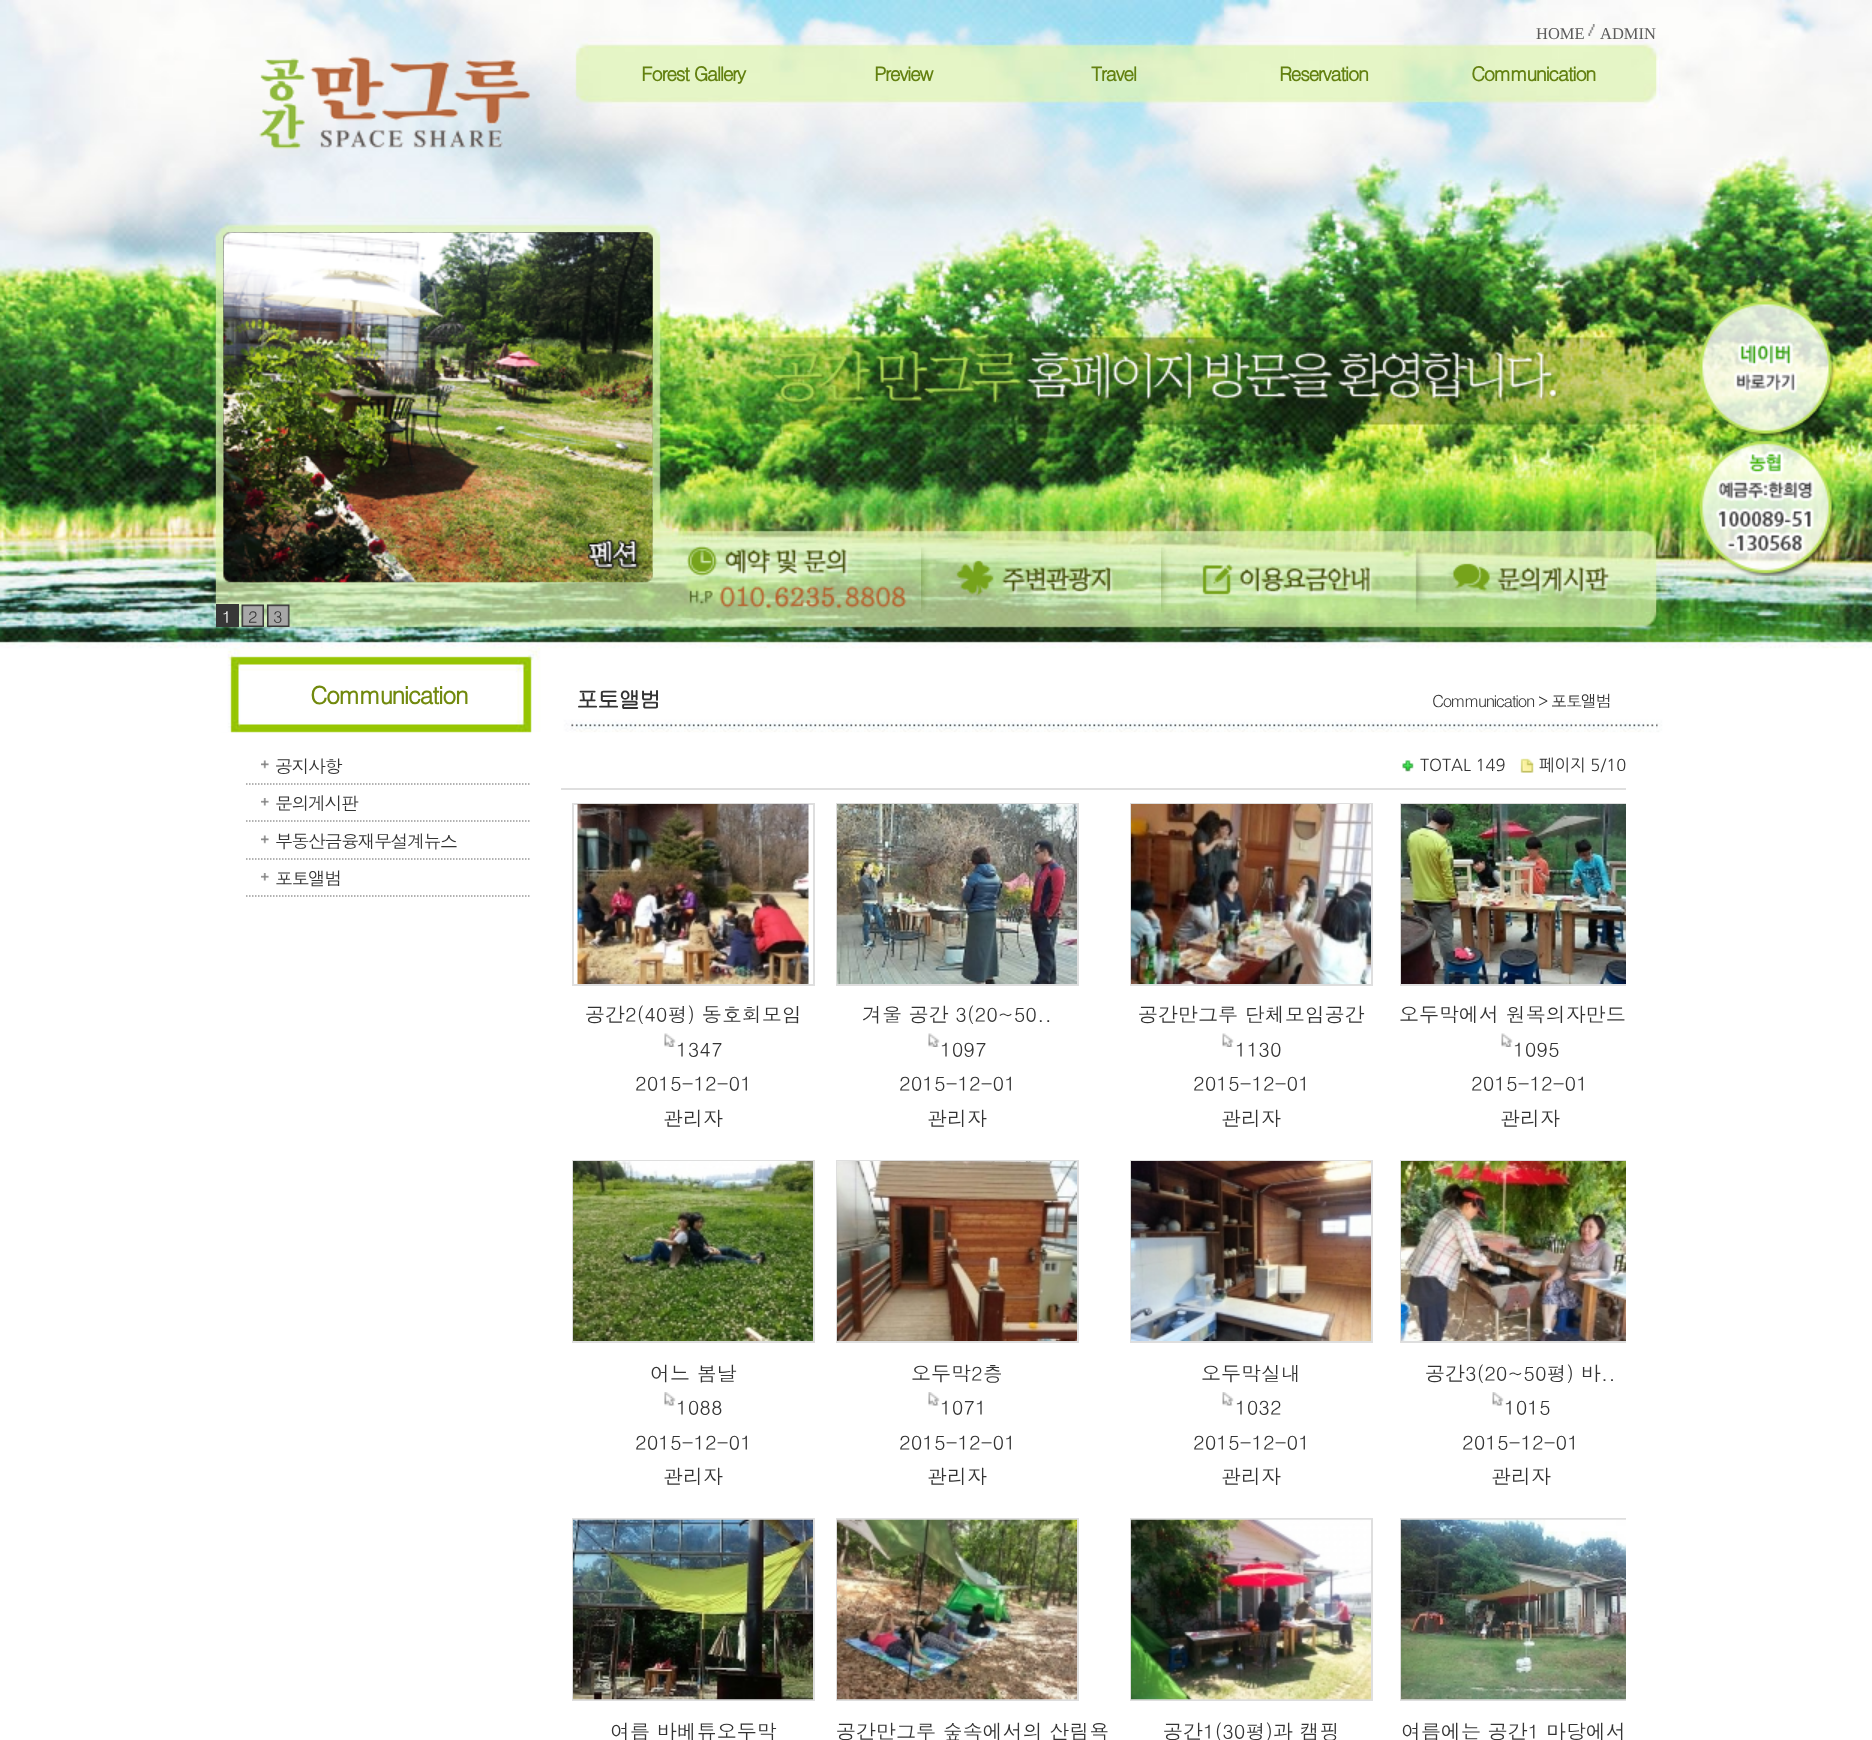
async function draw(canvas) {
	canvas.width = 1872;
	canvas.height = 1740;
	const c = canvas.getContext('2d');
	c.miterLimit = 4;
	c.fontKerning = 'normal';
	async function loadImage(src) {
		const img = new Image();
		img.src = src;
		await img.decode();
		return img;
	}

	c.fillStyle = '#fff';
	c.fillRect(0, 0, 1872, 1740);
	c.drawImage(await loadImage('img1.png'), 0, 0, 1872, 733);
	c.drawImage(await loadImage('img2.png'), 216, 0, 1440, 732);
	c.font = '16.5px Liberation Serif';
	c.fillStyle = '#5b5b5b';
	c.fillText('HOME', 1536, 39);
	c.drawImage(await loadImage('img3.png'), 1588, 24, 7, 12);
	c.fillText('ADMIN', 1600, 39);
	c.drawImage(await loadImage('img4.png'), 259, 56, 271, 93);
	c.letterSpacing = '-1.5px';
	c.font = 'bold 19.5px Dotum';
	c.fillStyle = '#638110';
	for (const [text, x, y] of [
		['Forest Gallery', 641, 81],
		['Preview', 874, 81],
		['Travel', 1091, 81],
		['Reservation', 1279, 81],
		['Communication', 1471, 81],
	]) {
		c.fillText(text, x, y);
	}
	c.drawImage(await loadImage('img5.png'), 1699, 301, 136, 137);
	c.drawImage(await loadImage('img6.png'), 1699, 440, 136, 136);
	c.drawImage(await loadImage('img7.png'), 660, 350, 899, 181);
	c.drawImage(await loadImage('img8.png'), 686, 545, 221, 64);
	c.drawImage(await loadImage('img9.png'), 921, 547, 193, 66);
	c.drawImage(await loadImage('img10.png'), 1161, 547, 212, 66);
	c.drawImage(await loadImage('img11.png'), 1415, 547, 196, 66);
	c.drawImage(await loadImage('img12.png'), 223, 232, 430, 351);
	c.drawImage(await loadImage('img13.png'), 223, 232, 430, 351);
	c.drawImage(await loadImage('img14.png'), 223, 232, 430, 351);
	c.fillStyle = '#373737';
	c.fillRect(216, 604, 23, 23);
	c.letterSpacing = '0px';
	c.font = '16.5px Dotum';
	c.fillStyle = '#fff';
	c.fillText('1', 222, 623);
	c.drawImage(await loadImage('img15.png'), 241, 604, 23, 23);
	c.fillStyle = '#333';
	c.fillText('2', 248, 623);
	c.drawImage(await loadImage('img16.png'), 267, 604, 23, 23);
	c.fillText('3', 273, 623);
	c.letterSpacing = '-1.5px';
	c.font = 'bold 24px Dotum';
	c.fillStyle = '#71890d';
	c.fillText('Communication', 310, 704);
	c.beginPath();
	c.moveTo(246, 784);
	c.lineTo(531, 784);
	c.strokeStyle = '#999';
	c.lineWidth = 1.5;
	c.setLineDash([1.5, 1.5]);
	c.stroke();
	c.drawImage(await loadImage('img17.png'), 261, 760, 8, 9);
	c.font = '18px Dotum';
	c.fillStyle = '#333';
	c.fillText('공지사항', 275, 773);
	c.beginPath();
	c.moveTo(246, 821);
	c.lineTo(531, 821);
	c.stroke();
	c.drawImage(await loadImage('img18.png'), 261, 798, 8, 8);
	c.fillText('문의게시판', 275, 810);
	c.beginPath();
	c.moveTo(246, 859);
	c.lineTo(531, 859);
	c.stroke();
	c.drawImage(await loadImage('img17.png'), 261, 835, 8, 9);
	c.fillText('부동산금융재무설계뉴스', 275, 848);
	c.beginPath();
	c.moveTo(246, 896);
	c.lineTo(531, 896);
	c.stroke();
	c.drawImage(await loadImage('img18.png'), 261, 873, 8, 8);
	c.fillText('포토앨범', 275, 885);
	c.font = 'bold 22.5px Gulim';
	c.fillText('포토앨범', 576, 708);
	c.font = '16.5px Dotum';
	c.fillText('Communication > 포토앨범', 1432, 707);
	c.fillStyle = '#dfdfdf';
	c.fillRect(561, 788, 1065, 2);
	c.drawImage(await loadImage('img19.png'), 1402, 760, 12, 12);
	c.letterSpacing = '0px';
	c.font = '16.5px NanumGothic';
	c.fillStyle = '#333';
	c.fillText('TOTAL 149', 1420, 771);
	c.drawImage(await loadImage('img20.png'), 1520, 758, 14, 15);
	c.fillText('페이지 5/10', 1539, 771);
	c.strokeStyle = '#dedede';
	c.lineWidth = 2;
	c.setLineDash([]);
	c.strokeRect(573, 804, 241, 181);
	c.drawImage(await loadImage('img21.png'), 577, 804, 232, 180);
	c.font = '20px Dotum';
	c.fillText('공간2(40평) 동호회모임', 585, 1022);
	c.drawImage(await loadImage('img22.png'), 664, 1033, 12, 14);
	for (const [text, x, y] of [
		['1347', 676, 1057],
		['2015-12-01', 635, 1091],
		['관리자', 663, 1126],
	]) {
		c.fillText(text, x, y);
	}
	c.strokeRect(837, 804, 241, 181);
	c.drawImage(await loadImage('img23.png'), 837, 804, 240, 180);
	c.fillText('겨울 공간 3(20~50..', 862, 1022);
	c.drawImage(await loadImage('img22.png'), 928, 1033, 12, 14);
	for (const [text, x, y] of [
		['1097', 940, 1057],
		['2015-12-01', 899, 1091],
		['관리자', 927, 1126],
	]) {
		c.fillText(text, x, y);
	}
	c.strokeRect(1131, 804, 241, 181);
	c.drawImage(await loadImage('img24.png'), 1131, 804, 240, 180);
	c.fillText('공간만그루 단체모임공간', 1138, 1022);
	c.drawImage(await loadImage('img25.png'), 1222, 1033, 12, 14);
	for (const [text, x, y] of [
		['1130', 1235, 1057],
		['2015-12-01', 1193, 1091],
		['관리자', 1221, 1126],
	]) {
		c.fillText(text, x, y);
	}
	c.save();
	c.beginPath();
	c.rect(561, 747, 1065, 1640);
	c.clip();
	c.strokeRect(1401, 804, 241, 181);
	c.restore();
	c.drawImage(await loadImage('img26.png'), 1401, 804, 225, 180);
	c.fillText('오두막에서 원목의자만드', 1399, 1022);
	c.drawImage(await loadImage('img25.png'), 1501, 1033, 12, 14);
	for (const [text, x, y] of [
		['1095', 1513, 1057],
		['2015-12-01', 1471, 1091],
		['관리자', 1500, 1126],
	]) {
		c.fillText(text, x, y);
	}
	c.strokeRect(573, 1161, 241, 181);
	c.drawImage(await loadImage('img27.png'), 573, 1161, 240, 180);
	c.fillText('어느 봄날', 650, 1381);
	c.drawImage(await loadImage('img28.png'), 664, 1392, 12, 14);
	for (const [text, x, y] of [
		['1088', 676, 1415],
		['2015-12-01', 635, 1450],
		['관리자', 663, 1484],
	]) {
		c.fillText(text, x, y);
	}
	c.strokeRect(837, 1161, 241, 181);
	c.drawImage(await loadImage('img29.png'), 837, 1161, 240, 180);
	c.fillText('오두막2층', 911, 1381);
	c.drawImage(await loadImage('img28.png'), 928, 1392, 12, 14);
	for (const [text, x, y] of [
		['1071', 940, 1415],
		['2015-12-01', 899, 1450],
		['관리자', 927, 1484],
	]) {
		c.fillText(text, x, y);
	}
	c.strokeRect(1131, 1161, 241, 181);
	c.drawImage(await loadImage('img30.png'), 1131, 1161, 240, 180);
	c.fillText('오두막실내', 1201, 1381);
	c.drawImage(await loadImage('img31.png'), 1222, 1392, 12, 14);
	for (const [text, x, y] of [
		['1032', 1235, 1415],
		['2015-12-01', 1193, 1450],
		['관리자', 1221, 1484],
	]) {
		c.fillText(text, x, y);
	}
	c.save();
	c.beginPath();
	c.rect(561, 747, 1065, 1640);
	c.clip();
	c.strokeRect(1401, 1161, 241, 181);
	c.restore();
	c.drawImage(await loadImage('img32.png'), 1401, 1161, 225, 180);
	c.fillText('공간3(20~50평) 바..', 1425, 1381);
	c.drawImage(await loadImage('img31.png'), 1492, 1392, 12, 14);
	for (const [text, x, y] of [
		['1015', 1504, 1415],
		['2015-12-01', 1462, 1450],
		['관리자', 1491, 1484],
	]) {
		c.fillText(text, x, y);
	}
	c.strokeRect(573, 1519, 241, 181);
	c.drawImage(await loadImage('img33.png'), 573, 1519, 240, 181);
	c.fillText('여름 바베튜오두막', 610, 1739);
	c.strokeRect(837, 1519, 241, 181);
	c.drawImage(await loadImage('img34.png'), 837, 1519, 240, 181);
	c.fillText('공간만그루 숲속에서의 산림욕', 836, 1739);
	c.strokeRect(1131, 1519, 241, 181);
	c.drawImage(await loadImage('img35.png'), 1131, 1519, 240, 181);
	c.fillText('공간1(30평)과 캠핑', 1163, 1739);
	c.save();
	c.beginPath();
	c.rect(561, 747, 1065, 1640);
	c.clip();
	c.strokeRect(1401, 1519, 241, 181);
	c.restore();
	c.drawImage(await loadImage('img36.png'), 1401, 1519, 225, 181);
	c.fillText('여름에는 공간1 마당에서', 1401, 1739);
}

draw(document.querySelector('canvas'));
